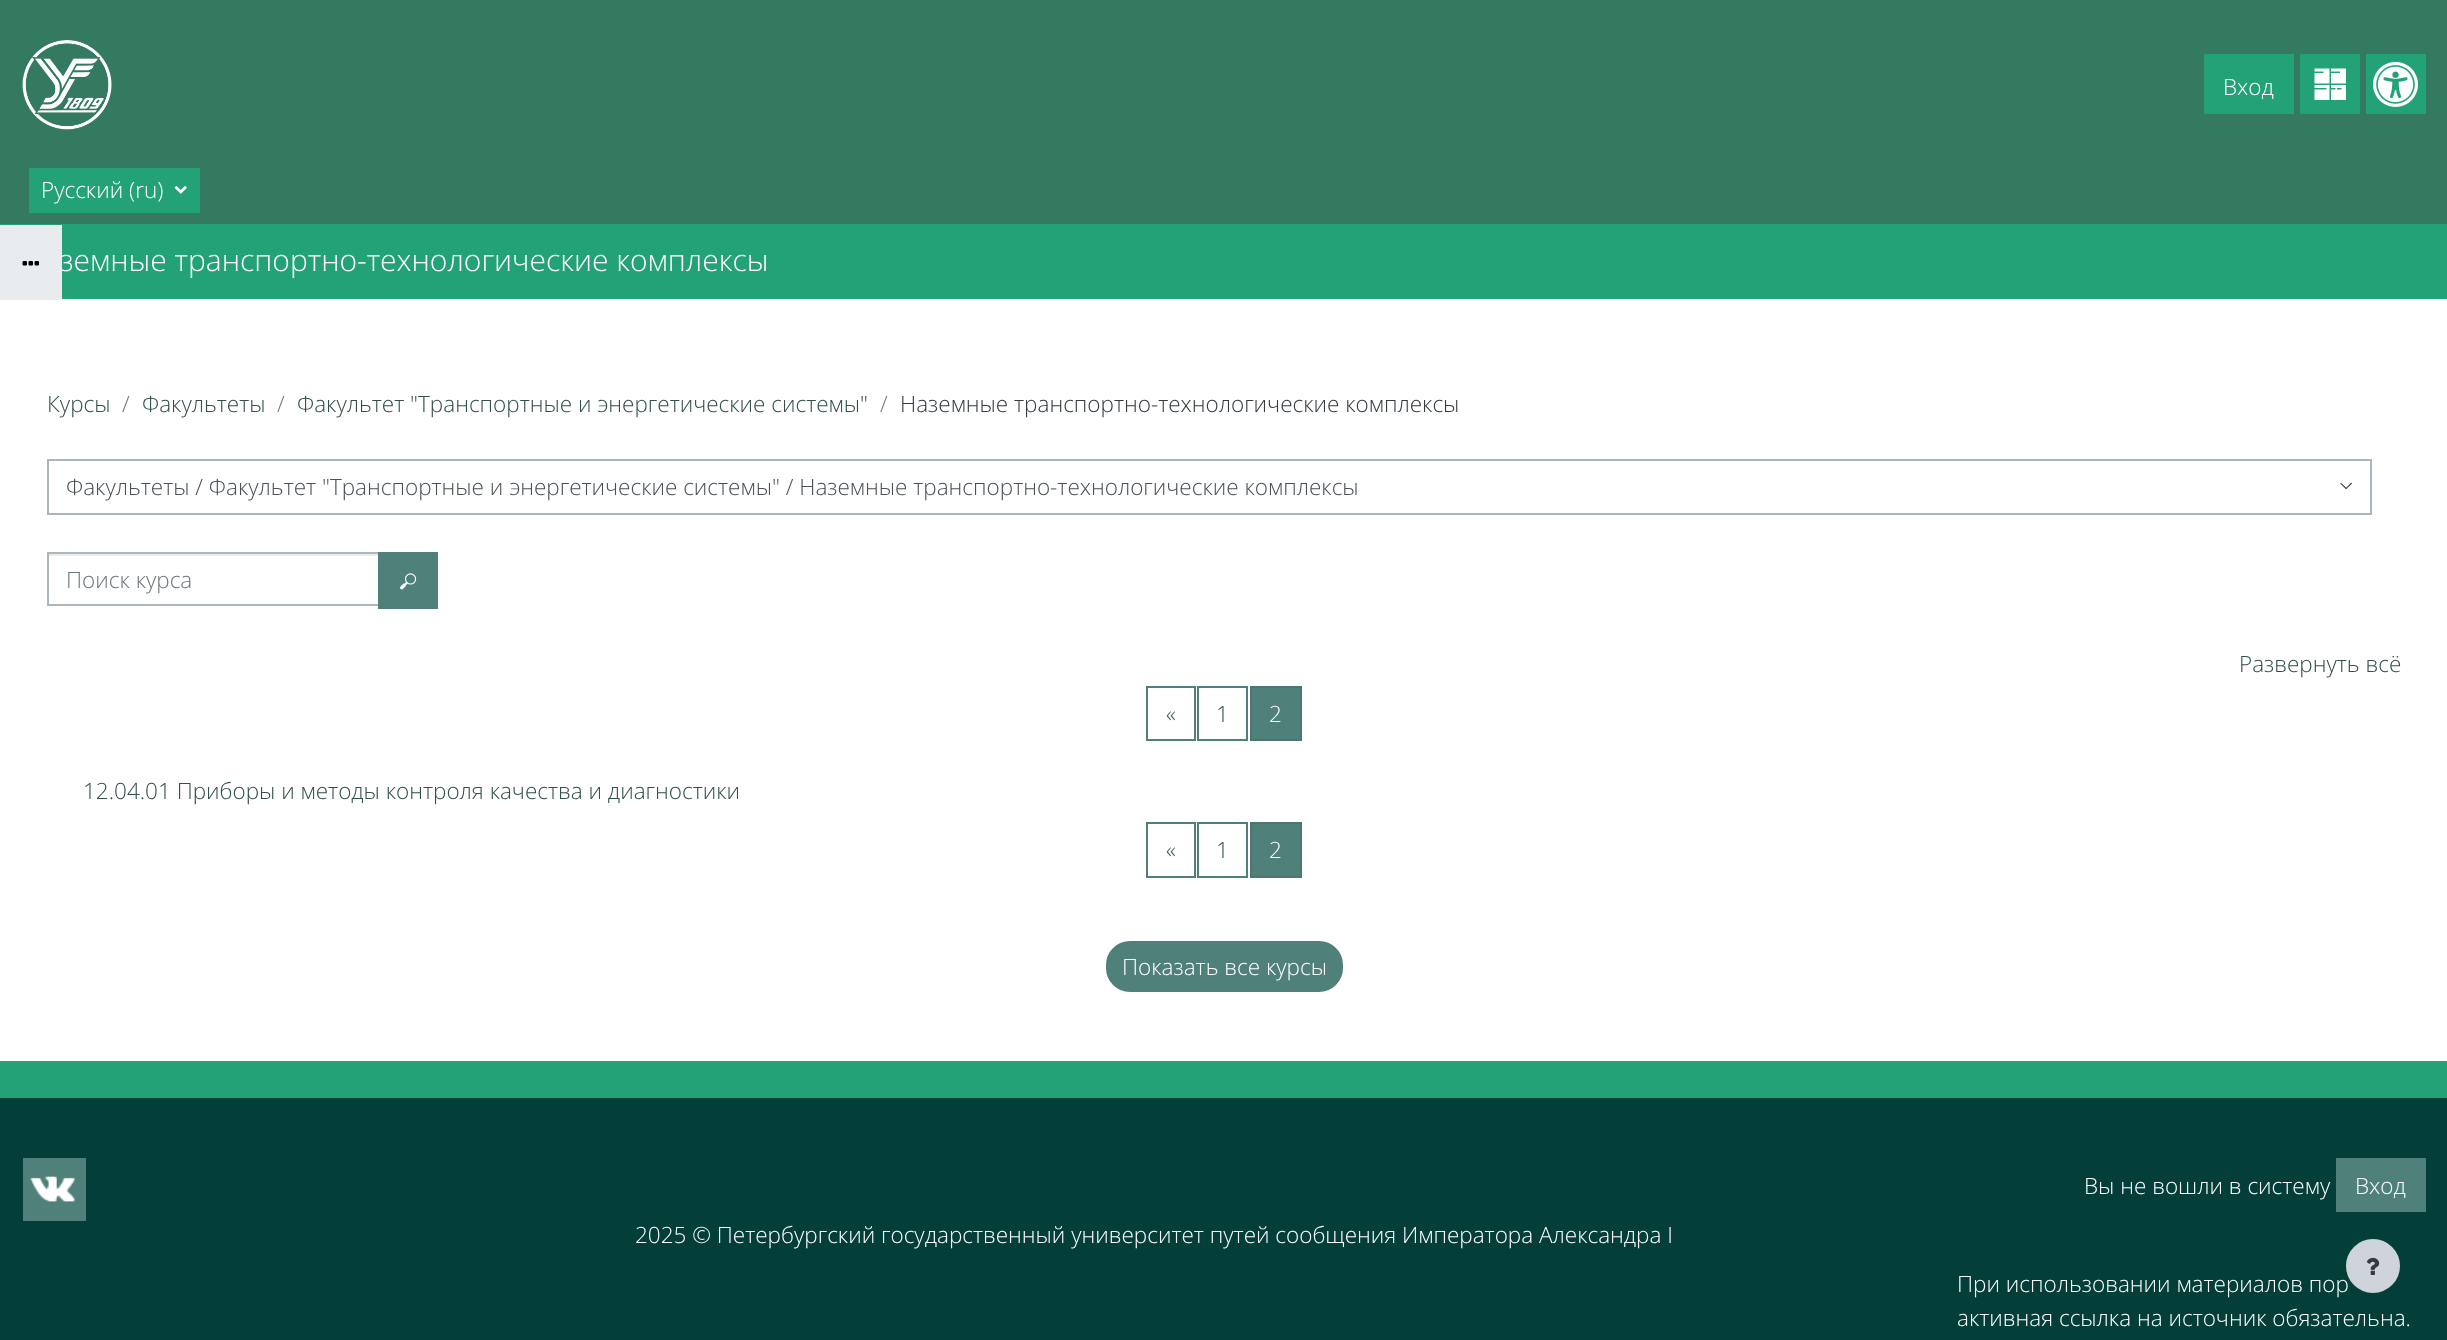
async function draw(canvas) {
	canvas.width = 2447;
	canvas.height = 1340;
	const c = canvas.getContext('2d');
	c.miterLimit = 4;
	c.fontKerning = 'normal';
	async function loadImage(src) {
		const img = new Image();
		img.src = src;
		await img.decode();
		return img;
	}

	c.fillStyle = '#fff';
	c.fillRect(0, 0, 2447, 1340);
	c.fillStyle = '#24a277';
	c.fillRect(0, 224, 2447, 75);
	c.font = '300 30px Open Sans';
	c.fillStyle = '#fff';
	c.fillText('земные транспортно-технологические комплексы', 60, 271);
	c.fillStyle = '#e9ecef';
	c.fillRect(0, 225, 62, 75);
	c.drawImage(await loadImage('img1.png'), 22, 261, 17, 5);
	c.fillStyle = '#337a61';
	c.fillRect(0, 0, 2447, 224);
	c.fillStyle = '#24a277';
	c.fillRect(2204, 54, 90, 60);
	c.font = '300 22.5px Open Sans';
	c.fillStyle = '#fff';
	c.fillText('Вход', 2223, 95);
	c.fillStyle = '#24a277';
	c.fillRect(2300, 54, 60, 60);
	c.drawImage(await loadImage('img2.png'), 2314, 68, 32, 32);
	c.fillRect(2366, 54, 60, 60);
	c.drawImage(await loadImage('img3.png'), 2373, 61, 45, 46);
	c.drawImage(await loadImage('img4.png'), 22, 40, 90, 90);
	c.fillRect(29, 168, 171, 45);
	c.fillStyle = '#fff';
	c.fillText('Русский (ru)', 41, 198);
	c.drawImage(await loadImage('img5.png'), 174, 186, 13, 8);
	c.fillStyle = '#314f4b';
	c.fillText('Курсы', 47, 412);
	c.fillStyle = '#6c757d';
	c.fillText('/', 122, 412);
	c.fillStyle = '#314f4b';
	c.fillText('Факультеты', 142, 412);
	c.fillStyle = '#6c757d';
	c.fillText('/', 277, 412);
	c.fillStyle = '#314f4b';
	c.fillText('Факультет "Транспортные и энергетические системы"', 297, 412);
	c.fillStyle = '#6c757d';
	c.fillText('/', 880, 412);
	c.fillStyle = '#343a40';
	c.fillText('Наземные транспортно-технологические комплексы', 900, 412);
	c.drawImage(await loadImage('img6.png'), 2340, 482, 12, 8);
	c.strokeStyle = '#adb5bd';
	c.lineWidth = 2;
	c.strokeRect(48, 460, 2323, 54);
	c.fillStyle = '#495057';
	c.fillText('Факультеты / Факультет "Транспортные и энергетические системы" / Наземные транспортно-технологические комплексы', 66, 495);
	c.fillStyle = '#ececec';
	c.fillRect(48, 554, 330, 2);
	c.strokeRect(48, 553, 331, 52);
	c.fillStyle = '#6c757d';
	c.fillText('Поиск курса', 66, 588);
	c.fillStyle = '#4f807a';
	c.fillRect(378, 552, 60, 57);
	c.drawImage(await loadImage('img7.png'), 399, 573, 18, 17);
	c.fillStyle = '#314f4b';
	c.fillText('Развернуть всё', 2239, 672);
	c.strokeStyle = '#4f807a';
	c.strokeRect(1147, 687, 48, 53);
	c.fillText('«', 1166, 722);
	c.strokeRect(1198, 687, 49, 53);
	c.fillText('1', 1216, 722);
	c.fillStyle = '#4f807a';
	c.beginPath();
	c.rect(1251, 687, 50, 53);
	c.fill();
	c.strokeStyle = '#4a7772';
	c.stroke();
	c.fillStyle = '#fff';
	c.fillText('2', 1269, 722);
	c.fillStyle = '#314f4b';
	c.fillText('12.04.01 Приборы и методы контроля качества и диагностики', 83, 799);
	c.strokeStyle = '#4f807a';
	c.strokeRect(1147, 823, 48, 54);
	c.fillText('«', 1166, 858);
	c.strokeRect(1198, 823, 49, 54);
	c.fillText('1', 1216, 858);
	c.fillStyle = '#4f807a';
	c.beginPath();
	c.rect(1251, 823, 50, 54);
	c.fill();
	c.strokeStyle = '#4a7772';
	c.stroke();
	c.fillStyle = '#fff';
	c.fillText('2', 1269, 858);
	c.fillStyle = '#4f807a';
	c.beginPath();
	c.roundRect(1107, 942, 235, 49, 23);
	c.fill();
	c.strokeStyle = '#4f807a';
	c.stroke();
	c.fillStyle = '#fff';
	c.fillText('Показать все курсы', 1122, 975);
	for (const [x, y, w, h, color] of [
		[0, 1061, 2447, 37, '#24a277'],
		[0, 1098, 2447, 242, '#033e38'],
		[23, 1158, 63, 63, '#4f807a'],
	]) {
		c.fillStyle = color;
		c.fillRect(x, y, w, h);
	}
	c.drawImage(await loadImage('img8.png'), 30, 1176, 45, 26);
	c.fillStyle = '#fff';
	c.fillText('2025 © Петербургский государственный университет путей сообщения Императора Александра I', 635, 1243);
	c.fillText('Вы не вошли в систему', 2084, 1194);
	c.fillStyle = '#4f807a';
	c.fillRect(2336, 1158, 90, 54);
	c.fillStyle = '#fff';
	for (const [text, x, y] of [
		['Вход', 2355, 1194],
		['При использовании материалов пор', 1957, 1292],
		['активная ссылка на источник обязательна.', 1957, 1326],
	]) {
		c.fillText(text, x, y);
	}
	c.fillStyle = '#ced4da';
	c.beginPath();
	c.arc(2373, 1266, 26, 0, 2 * Math.PI);
	c.fill();
	c.strokeStyle = '#ced4da';
	c.stroke();
	c.drawImage(await loadImage('img9.png'), 2366, 1257, 14, 18);
}

draw(document.querySelector('canvas'));
